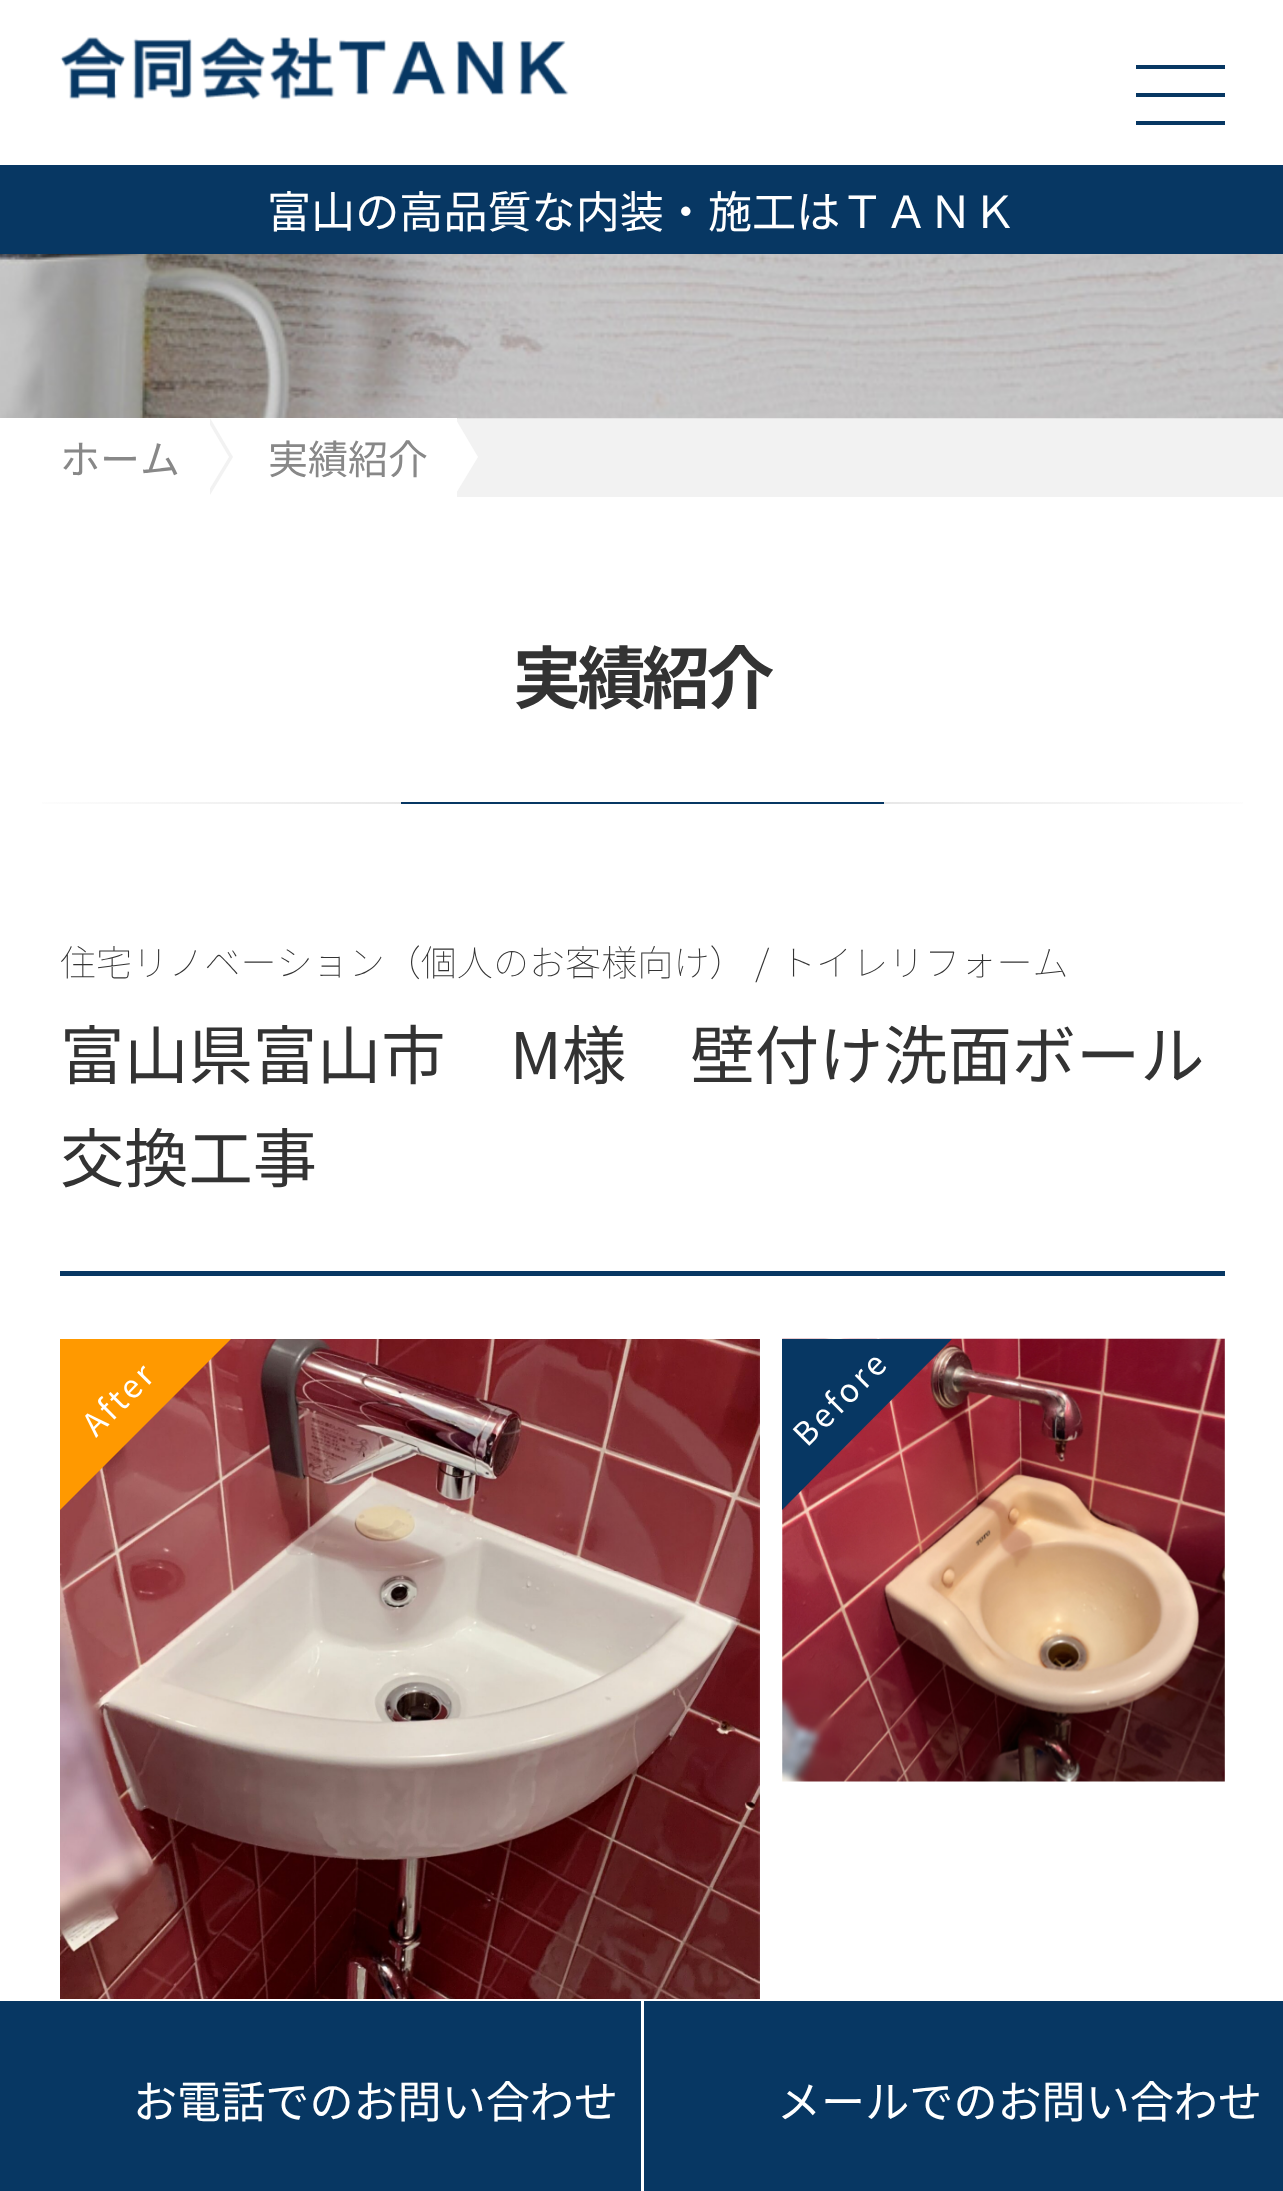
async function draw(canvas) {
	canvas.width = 1283;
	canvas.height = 2191;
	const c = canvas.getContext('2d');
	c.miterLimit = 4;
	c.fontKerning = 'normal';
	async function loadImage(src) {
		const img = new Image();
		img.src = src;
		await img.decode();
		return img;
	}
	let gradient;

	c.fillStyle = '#fff';
	c.fillRect(0, 0, 1283, 2191);
	for (const [x, y, w, h, color] of [
		[1136, 65, 89, 4, '#073763'],
		[1136, 93, 89, 4, '#073763'],
		[1136, 121, 89, 4, '#073763'],
	]) {
		c.fillStyle = color;
		c.fillRect(x, y, w, h);
	}
	c.drawImage(await loadImage('img1.png'), 60, 37, 509, 63);
	c.fillRect(0, 165, 1283, 89);
	c.font = '44.1px Noto Sans JP';
	c.fillStyle = '#fff';
	c.fillText('富山の高品質な内装・施工はＴＡＮＫ', 267, 228);
	c.fillStyle = '#f2f2f2';
	c.fillRect(457, 418, 826, 79);
	c.drawImage(await loadImage('img2.png'), 0, 254, 1283, 165);
	c.fillStyle = '#fff';
	c.fillRect(0, 418, 457, 1);
	c.fillStyle = '#f2f2f2';
	c.beginPath();
	c.moveTo(210, 495);
	c.lineTo(210, 418);
	c.lineTo(233, 457);
	c.closePath();
	c.fill();
	c.fillStyle = '#fff';
	c.beginPath();
	c.moveTo(206, 495);
	c.lineTo(206, 418);
	c.lineTo(229, 457);
	c.closePath();
	c.fill();
	c.font = '40px Noto Sans JP';
	c.fillStyle = '#888';
	c.fillText('ホーム', 60, 474);
	c.fillStyle = '#f2f2f2';
	c.beginPath();
	c.moveTo(458, 495);
	c.lineTo(458, 418);
	c.lineTo(481, 457);
	c.closePath();
	c.fill();
	c.fillStyle = '#fff';
	c.beginPath();
	c.moveTo(455, 495);
	c.lineTo(455, 418);
	c.lineTo(478, 457);
	c.closePath();
	c.fill();
	c.fillStyle = '#888';
	c.fillText('実績紹介', 268, 474);
	c.letterSpacing = '-3.5px';
	c.font = 'bold 68px Noto Sans JP';
	c.fillStyle = '#333';
	c.fillText('実績紹介', 513, 703);
	gradient = c.createLinearGradient(0, 802, 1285, 802);
	gradient.addColorStop(0, '#fff');
	gradient.addColorStop(0.5, '#d9d9d9');
	gradient.addColorStop(1, '#fff');
	c.fillStyle = gradient;
	c.fillRect(42, 802, 1201, 2);
	c.fillStyle = '#073763';
	c.fillRect(401, 802, 483, 2);
	c.letterSpacing = '0px';
	c.font = '100 36.1px Noto Sans JP';
	c.fillStyle = '#333';
	for (const [text, x, y] of [
		['住宅リノベーション（個人のお客様向け）', 60, 976],
		['/', 755, 976],
		['トイレリフォーム', 780, 976],
	]) {
		c.fillText(text, x, y);
	}
	c.fillStyle = '#073763';
	c.fillRect(60, 1271, 1165, 5);
	c.font = '64.25px Noto Sans JP';
	c.fillStyle = '#333';
	c.fillText('富山県富山市　M様　壁付け洗面ボール', 60, 1079);
	c.fillText('交換工事', 60, 1182);
	c.drawImage(await loadImage('img3.png'), 60, 1339, 700, 660);
	c.save();
	c.beginPath();
	c.rect(60, 1339, 700, 698);
	c.clip();
	c.fillStyle = '#f90';
	c.beginPath();
	c.moveTo(-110, 1339);
	c.lineTo(60, 1169);
	c.lineTo(231, 1339);
	c.lineTo(60, 1510);
	c.closePath();
	c.fill();
	c.restore();
	c.letterSpacing = '3.5px';
	c.font = '32px Noto Sans JP';
	c.fillStyle = '#fff';
	c.save();
	c.translate(96, 1438);
	c.rotate(-45 * Math.PI / 180);
	c.fillText('After', 0, 0);
	c.restore();
	c.drawImage(await loadImage('img4.png'), 782, 1338, 443, 444);
	c.save();
	c.beginPath();
	c.rect(782, 1339, 443, 443);
	c.clip();
	c.fillStyle = '#073763';
	c.beginPath();
	c.moveTo(612, 1339);
	c.lineTo(782, 1169);
	c.lineTo(952, 1339);
	c.lineTo(782, 1510);
	c.closePath();
	c.fill();
	c.restore();
	c.save();
	c.translate(807, 1448);
	c.rotate(-45 * Math.PI / 180);
	c.fillText('Before', 0, 0);
	c.restore();
	c.fillStyle = '#073763';
	c.fillRect(0, 2001, 641, 190);
	c.letterSpacing = '0px';
	c.font = '44.1px Noto Sans JP';
	c.fillStyle = '#fff';
	c.fillText('お電話でのお問い合わせ', 133, 2118);
	c.fillStyle = '#073763';
	c.fillRect(644, 2001, 639, 190);
	c.fillStyle = '#fff';
	c.fillText('メールでのお問い合わせ', 777, 2118);
}

draw(document.querySelector('canvas'));
